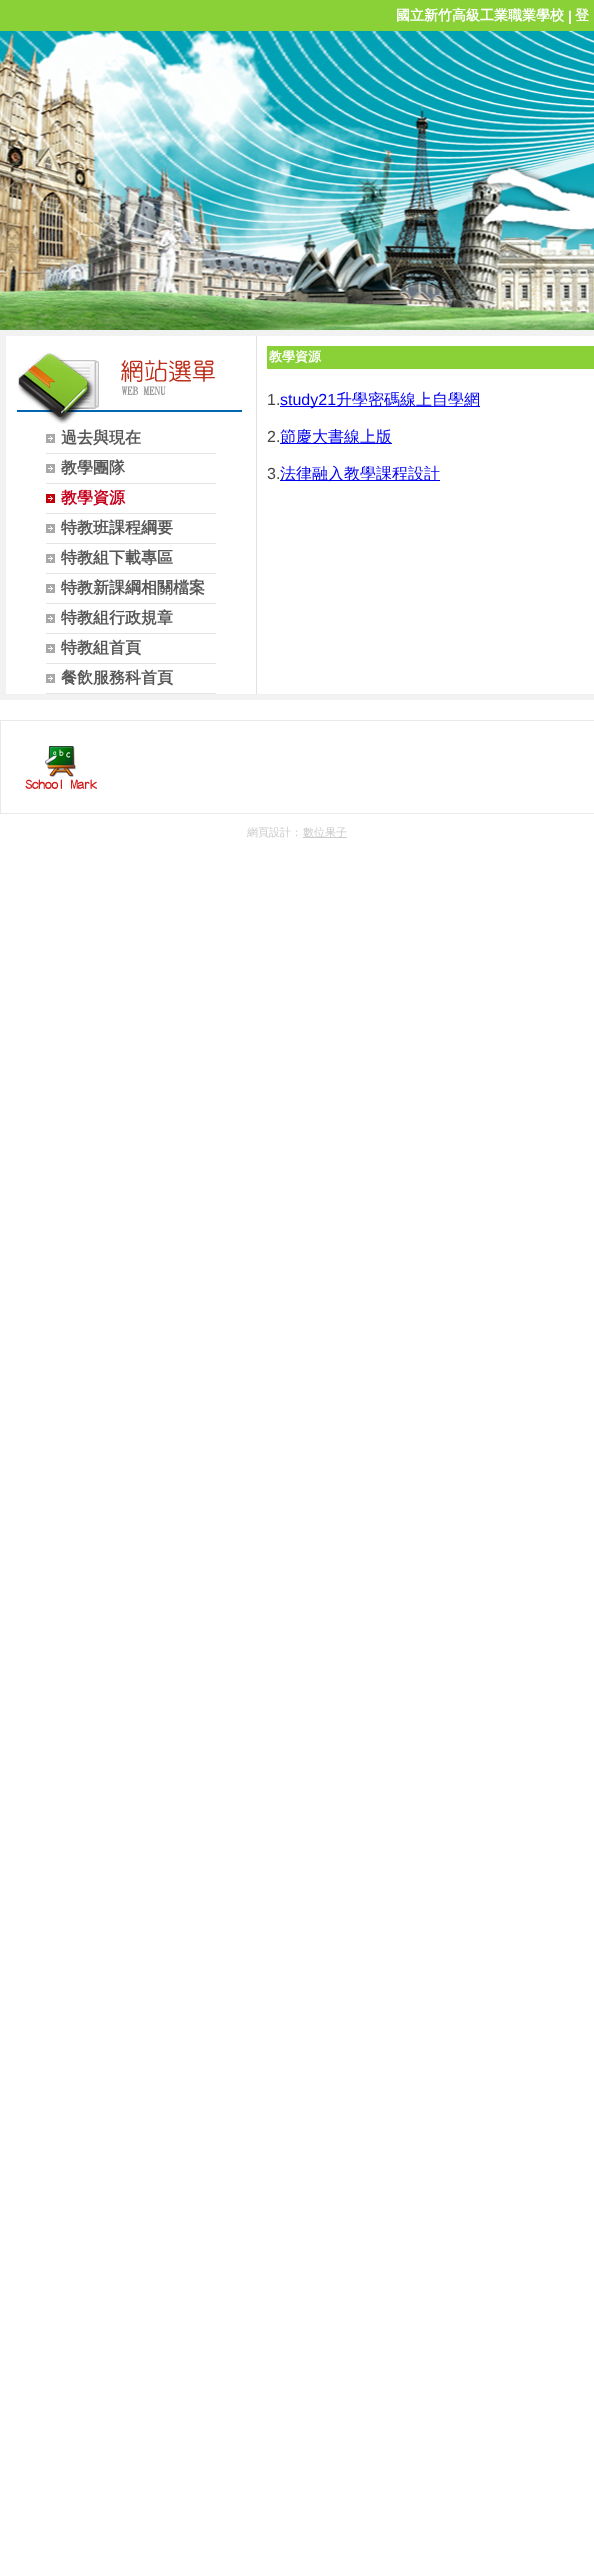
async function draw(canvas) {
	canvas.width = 594;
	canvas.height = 2553;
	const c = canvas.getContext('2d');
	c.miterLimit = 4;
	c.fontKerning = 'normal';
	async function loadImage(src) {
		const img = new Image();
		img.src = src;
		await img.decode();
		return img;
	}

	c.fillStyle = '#fff';
	c.fillRect(0, 0, 594, 2553);
	c.fillStyle = '#8ad137';
	c.fillRect(0, 0, 594, 31);
	c.font = 'bold 14px WenQuanYi Zen Hei';
	c.fillStyle = '#fff';
	c.fillText('國立新竹高級工業職業學校', 396, 20);
	c.font = 'bold 14px Liberation Sans';
	c.fillText('|', 568, 21);
	c.font = 'bold 14px WenQuanYi Zen Hei';
	c.fillText('登', 575, 20);
	c.drawImage(await loadImage('img1.png'), 0, 31, 594, 299);
	c.strokeStyle = '#f2f2f2';
	c.lineWidth = 6;
	c.strokeRect(3, 333, 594, 364);
	c.drawImage(await loadImage('img2.png'), 17, 353, 225, 71);
	c.fillStyle = '#e4e4e4';
	c.fillRect(46, 453, 170, 1);
	c.drawImage(await loadImage('img3.png'), 46, 434, 9, 9);
	c.font = 'bold 16px WenQuanYi Zen Hei';
	c.fillStyle = '#575757';
	c.fillText('過去與現在', 61, 443);
	c.fillStyle = '#e4e4e4';
	c.fillRect(46, 483, 170, 1);
	c.drawImage(await loadImage('img3.png'), 46, 464, 9, 9);
	c.fillStyle = '#575757';
	c.fillText('教學團隊', 61, 473);
	c.fillStyle = '#e4e4e4';
	c.fillRect(46, 513, 170, 1);
	c.drawImage(await loadImage('img4.png'), 46, 494, 9, 9);
	c.fillStyle = '#c5001c';
	c.fillText('教學資源', 61, 503);
	c.fillStyle = '#e4e4e4';
	c.fillRect(46, 543, 170, 1);
	c.drawImage(await loadImage('img3.png'), 46, 524, 9, 9);
	c.fillStyle = '#575757';
	c.fillText('特教班課程綱要', 61, 533);
	c.fillStyle = '#e4e4e4';
	c.fillRect(46, 573, 170, 1);
	c.drawImage(await loadImage('img3.png'), 46, 554, 9, 9);
	c.fillStyle = '#575757';
	c.fillText('特教組下載專區', 61, 563);
	c.fillStyle = '#e4e4e4';
	c.fillRect(46, 603, 170, 1);
	c.drawImage(await loadImage('img3.png'), 46, 584, 9, 9);
	c.fillStyle = '#575757';
	c.fillText('特教新課綱相關檔案', 61, 593);
	c.fillStyle = '#e4e4e4';
	c.fillRect(46, 633, 170, 1);
	c.drawImage(await loadImage('img3.png'), 46, 614, 9, 9);
	c.fillStyle = '#575757';
	c.fillText('特教組行政規章', 61, 623);
	c.fillStyle = '#e4e4e4';
	c.fillRect(46, 663, 170, 1);
	c.drawImage(await loadImage('img3.png'), 46, 644, 9, 9);
	c.fillStyle = '#575757';
	c.fillText('特教組首頁', 61, 653);
	c.fillStyle = '#e4e4e4';
	c.fillRect(46, 693, 170, 1);
	c.drawImage(await loadImage('img3.png'), 46, 674, 9, 9);
	c.fillStyle = '#575757';
	c.fillText('餐飲服務科首頁', 61, 683);
	c.fillStyle = '#e2e2e2';
	c.fillRect(256, 336, 1, 358);
	c.fillStyle = '#8ad137';
	c.fillRect(267, 346, 327, 23);
	c.font = 'bold 13px WenQuanYi Zen Hei';
	c.fillStyle = '#fff';
	c.fillText('教學資源', 269, 361);
	c.font = '16px Liberation Sans';
	c.fillStyle = '#454545';
	c.fillText('1.', 267, 405);
	c.fillStyle = '#00e';
	c.fillRect(280, 406, 200, 1);
	c.fillText('study21', 280, 405);
	c.font = '500 16px WenQuanYi Zen Hei';
	c.fillText('升學密碼線上自學網', 336, 405);
	c.font = '16px Liberation Sans';
	c.fillStyle = '#454545';
	c.fillText('2.', 267, 442);
	c.fillStyle = '#00e';
	c.fillRect(280, 443, 112, 1);
	c.font = '500 16px WenQuanYi Zen Hei';
	c.fillText('節慶大書線上版', 280, 442);
	c.font = '16px Liberation Sans';
	c.fillStyle = '#454545';
	c.fillText('3.', 267, 479);
	c.fillStyle = '#00e';
	c.fillRect(280, 480, 160, 1);
	c.font = '500 16px WenQuanYi Zen Hei';
	c.fillText('法律融入教學課程設計', 280, 479);
	c.strokeStyle = '#e9e9e9';
	c.lineWidth = 1;
	c.strokeRect(0.5, 720.5, 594, 93);
	c.drawImage(await loadImage('img5.png'), 25, 746, 72, 50);
	c.font = '500 11px WenQuanYi Zen Hei';
	c.fillStyle = '#ccc';
	c.fillText('網頁設計：', 247, 836);
	c.fillRect(303, 837, 44, 1);
	c.fillText('數位果子', 303, 836);
}

draw(document.querySelector('canvas'));
